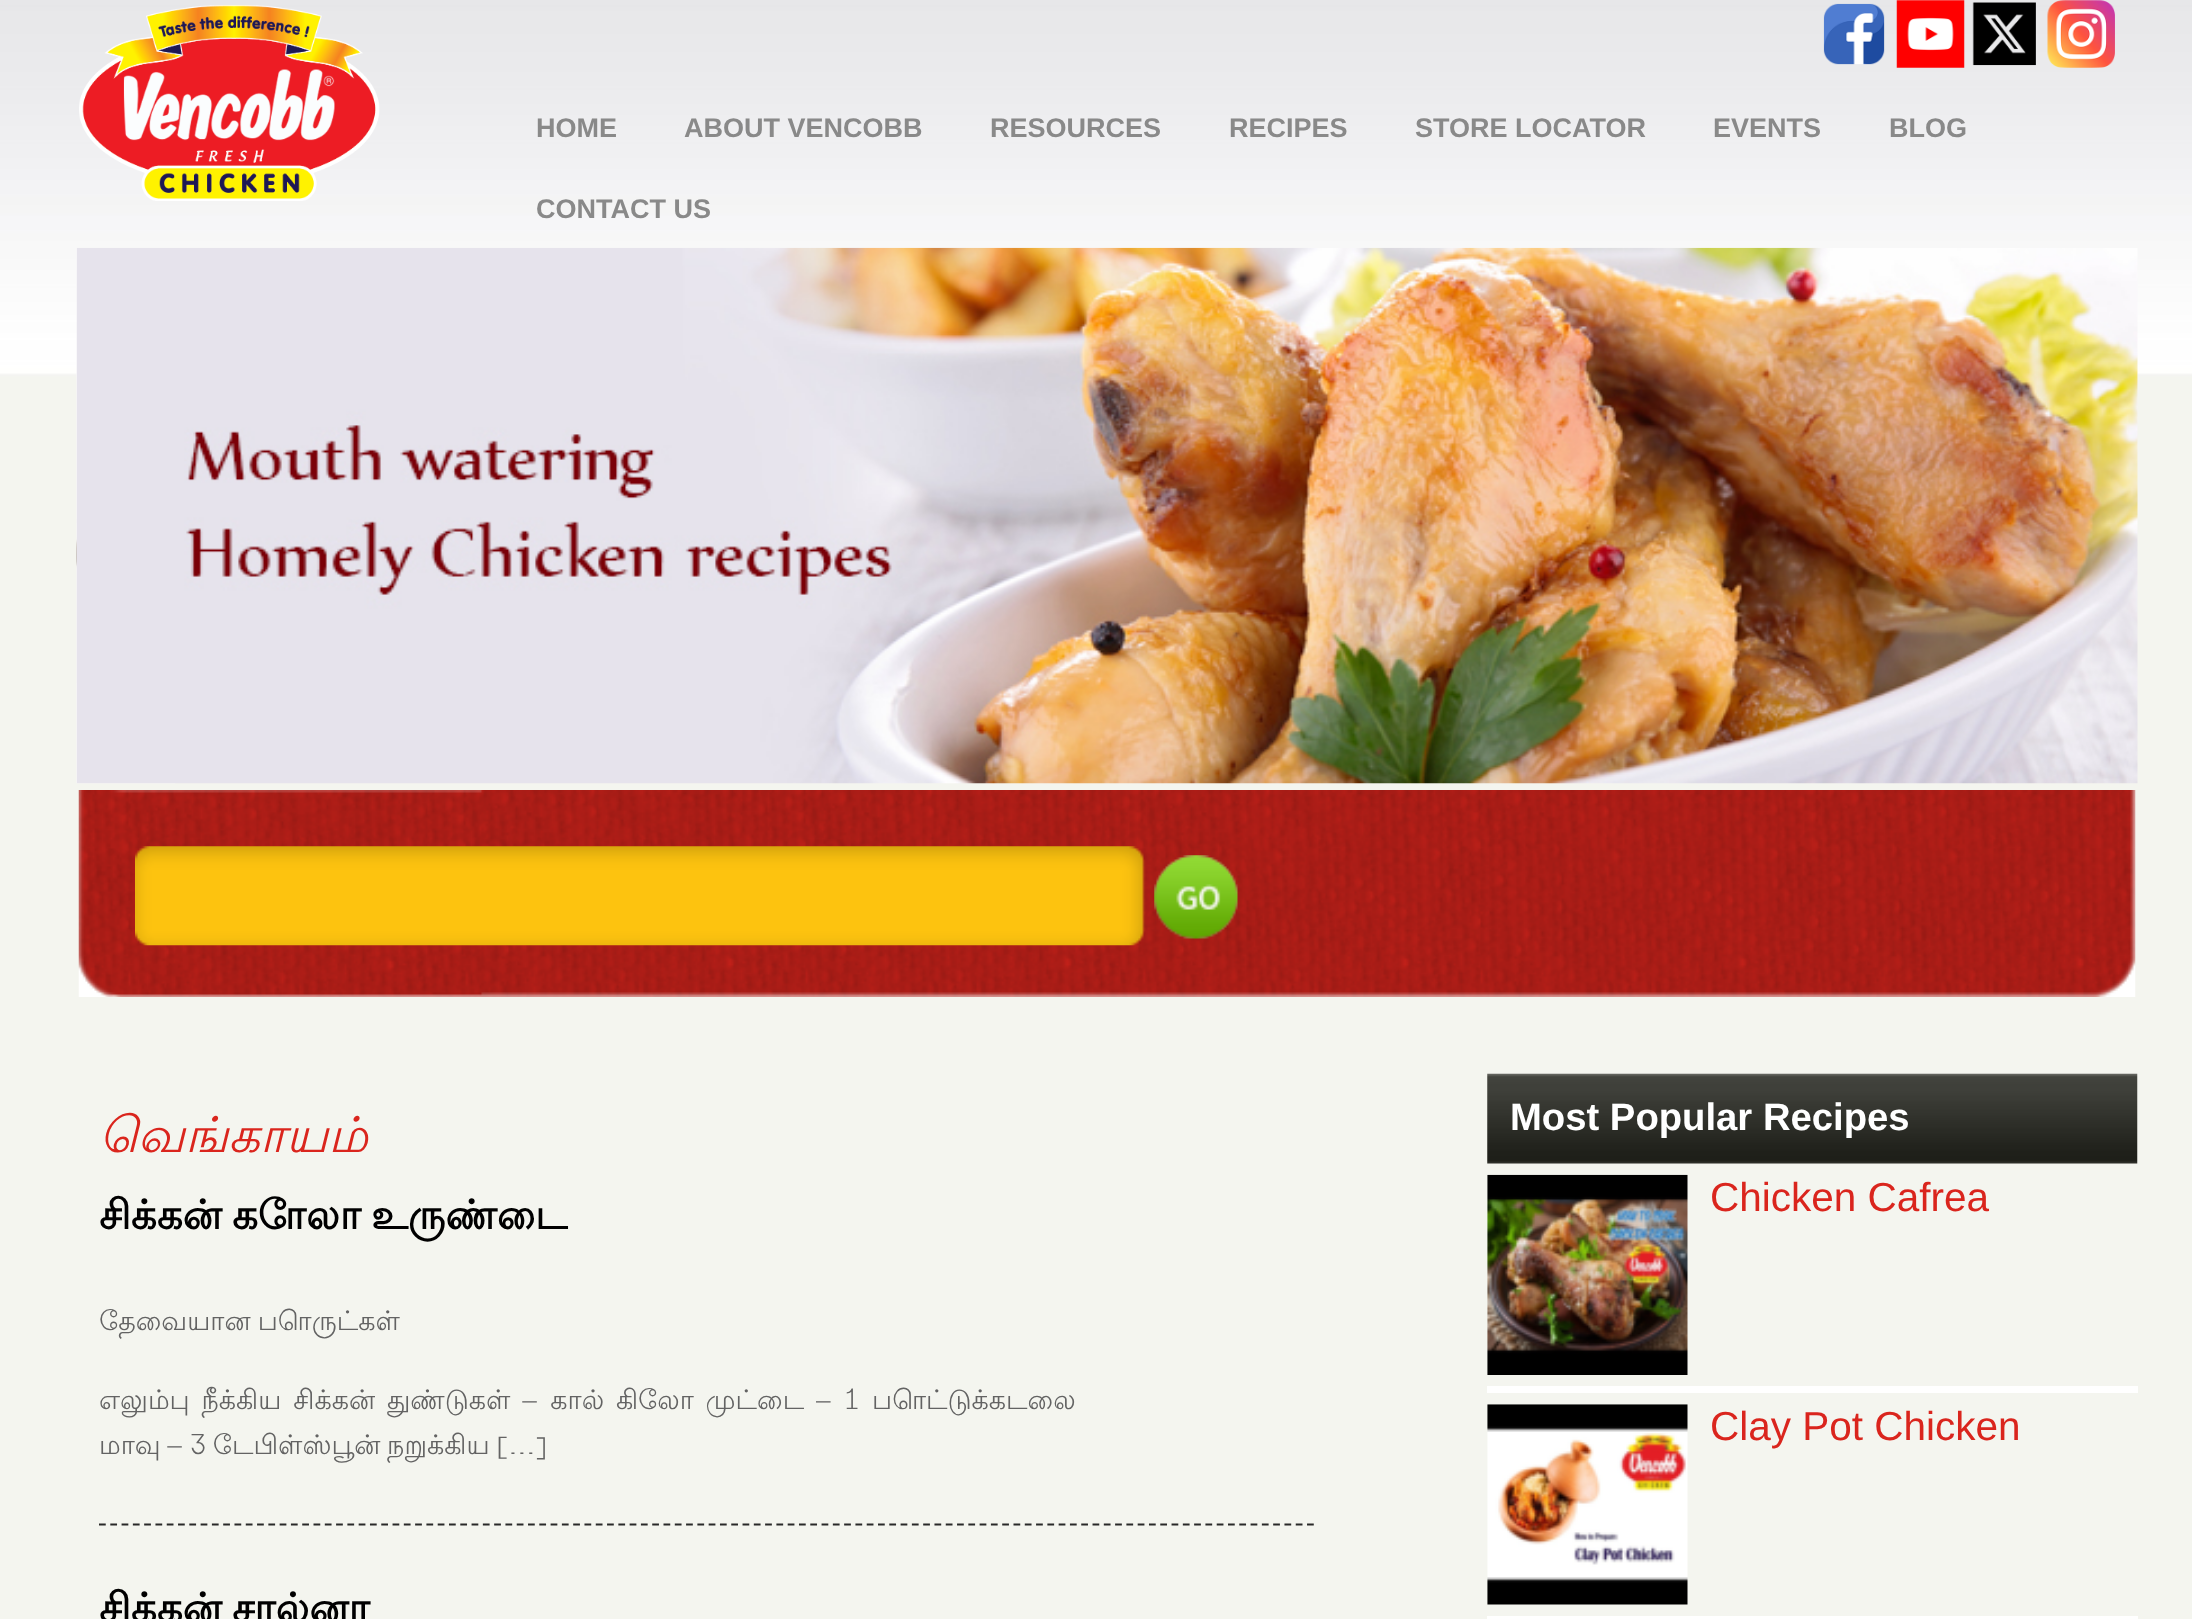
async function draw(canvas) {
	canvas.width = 2192;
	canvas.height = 1619;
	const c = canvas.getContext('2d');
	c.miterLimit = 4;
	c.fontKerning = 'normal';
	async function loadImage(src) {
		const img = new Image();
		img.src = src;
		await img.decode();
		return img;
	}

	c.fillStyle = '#fff';
	c.fillRect(0, 0, 2192, 1619);
	c.drawImage(await loadImage('img1.png'), 0, 0, 2192, 1017);
	c.drawImage(await loadImage('img2.png'), 79, 5, 301, 196);
	c.drawImage(await loadImage('img3.png'), 1823, 3, 62, 62);
	c.drawImage(await loadImage('img4.png'), 1896, 0, 69, 68);
	c.drawImage(await loadImage('img5.png'), 1972, 2, 64, 64);
	c.drawImage(await loadImage('img6.png'), 2047, 0, 68, 68);
	c.font = 'bold 27px Liberation Sans';
	c.fillStyle = '#898989';
	for (const [text, x, y] of [
		['HOME', 536, 137],
		['ABOUT VENCOBB', 684, 137],
		['RESOURCES', 990, 137],
		['RECIPES', 1229, 137],
		['STORE LOCATOR', 1415, 137],
		['EVENTS', 1713, 137],
		['BLOG', 1889, 137],
		['CONTACT US', 536, 218],
	]) {
		c.fillText(text, x, y);
	}
	c.drawImage(await loadImage('img8.png'), 76, 248, 100, 536);
	c.drawImage(await loadImage('img7.png'), 76, 247, 2062, 537);
	c.drawImage(await loadImage('img9.png'), 78, 790, 2058, 207);
	c.drawImage(await loadImage('img10.png'), 135, 846, 1011, 100);
	c.drawImage(await loadImage('img11.png'), 1154, 855, 84, 84);
	c.fillStyle = '#f4f5ef';
	c.fillRect(0, 1017, 2192, 602);
	c.font = 'italic 49.5px Lohit Tamil';
	c.fillStyle = '#da251d';
	c.fillText('வெங்காயம்', 99, 1152);
	c.beginPath();
	c.moveTo(99, 1524.5);
	c.lineTo(1314, 1524.5);
	c.strokeStyle = '#292929';
	c.lineWidth = 2.2;
	c.setLineDash([6.75, 4.54]);
	c.stroke();
	c.wordSpacing = '-2px';
	c.font = 'bold 40.5px Lohit Tamil';
	c.fillStyle = '#000';
	c.fillText('சிக்கன் கோலா உருண்டை', 99, 1229);
	c.wordSpacing = '-1px';
	c.font = '27px Lohit Tamil';
	c.fillStyle = '#636363';
	c.fillText('தேவையான பொருட்கள்', 99, 1330);
	c.wordSpacing = '3.75px';
	c.fillText('எலும்பு நீக்கிய சிக்கன் துண்டுகள் – கால் கிலோ முட்டை – 1 பொட்டுக்கடலை', 99, 1409);
	c.wordSpacing = '-1.5px';
	c.fillText('மாவு – 3 டேபிள்ஸ்பூன் நறுக்கிய […]', 99, 1454);
	c.wordSpacing = '-2px';
	c.font = 'bold 40.5px Lohit Tamil';
	c.fillStyle = '#000';
	c.fillText('சிக்கன் சால்னா', 99, 1622);
	c.drawImage(await loadImage('img12.png'), 1487, 1073, 651, 91);
	c.wordSpacing = '0px';
	c.font = 'bold 38.25px Liberation Sans';
	c.fillStyle = '#fff';
	c.fillText('Most Popular Recipes', 1510, 1130);
	c.fillRect(1487, 1386, 651, 7);
	c.drawImage(await loadImage('img13.png'), 1487, 1174, 201, 201);
	c.font = '40.5px Liberation Sans';
	c.fillStyle = '#da251d';
	c.fillText('Chicken Cafrea', 1710, 1211);
	c.fillStyle = '#fff';
	c.fillRect(1487, 1616, 651, 3);
	c.drawImage(await loadImage('img14.png'), 1487, 1404, 201, 201);
	c.fillStyle = '#da251d';
	c.fillText('Clay Pot Chicken', 1710, 1440);
}

draw(document.querySelector('canvas'));
